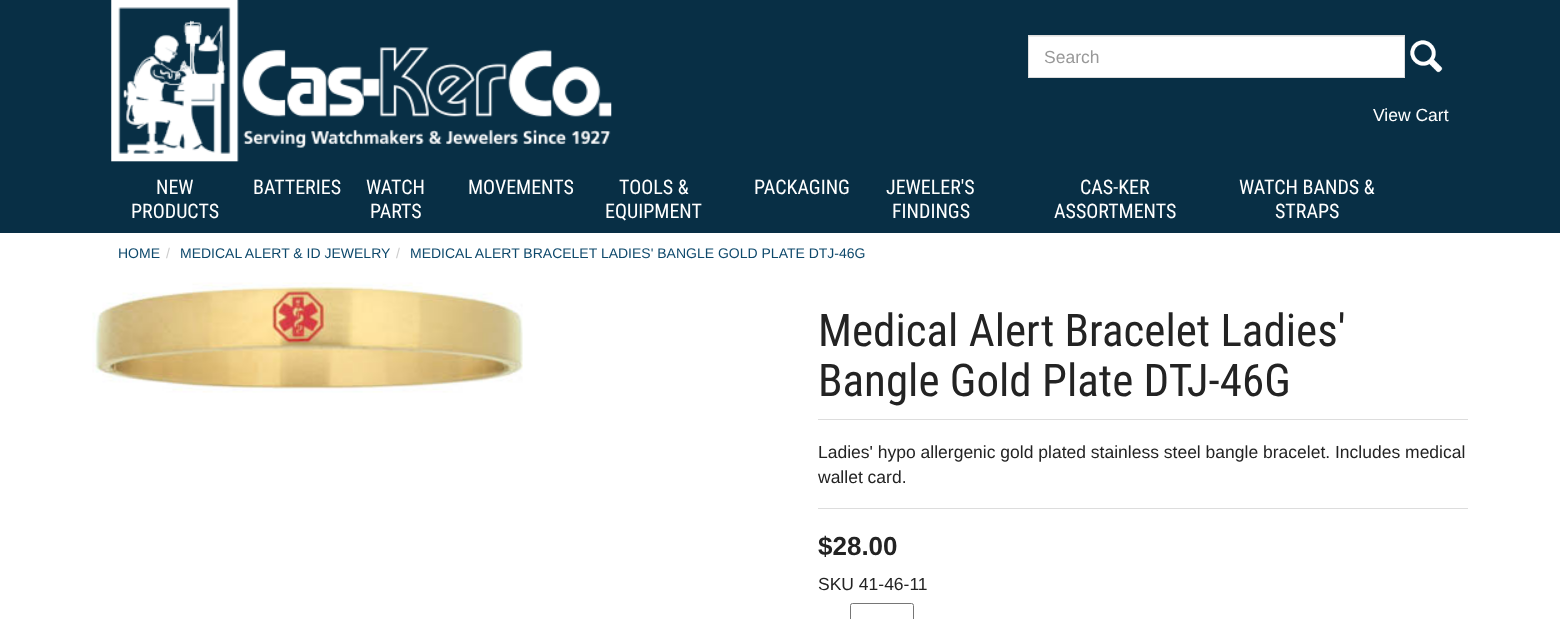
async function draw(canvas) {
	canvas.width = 1560;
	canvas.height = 619;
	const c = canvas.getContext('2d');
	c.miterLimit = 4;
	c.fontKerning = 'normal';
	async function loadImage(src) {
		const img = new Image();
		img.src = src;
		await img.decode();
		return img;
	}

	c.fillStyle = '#fff';
	c.fillRect(0, 0, 1560, 619);
	c.fillStyle = '#082f45';
	c.fillRect(0, 0, 1560, 233);
	c.drawImage(await loadImage('img1.png'), 111, 0, 501, 162);
	c.fillStyle = '#fff';
	c.fillRect(1029, 37, 375, 40);
	c.fillStyle = '#ececec';
	c.fillRect(1029, 36, 375, 1);
	c.strokeStyle = '#ddd';
	c.strokeRect(1028.5, 35.5, 376, 42);
	c.font = '17.5px Liberation Sans';
	c.fillStyle = '#999';
	c.fillText('Search', 1044, 63);
	c.drawImage(await loadImage('img2.png'), 1410, 40, 33, 33);
	c.fillStyle = '#fff';
	c.fillText('View Cart', 1373, 121);
	c.font = '20px Roboto Condensed';
	for (const [text, x, y] of [
		['NEW', 156, 194],
		['PRODUCTS', 131, 218],
		['BATTERIES', 253, 194],
		['WATCH', 366, 194],
		['PARTS', 370, 218],
		['MOVEMENTS', 468, 194],
		['TOOLS &', 619, 194],
		['EQUIPMENT', 605, 218],
		['PACKAGING', 754, 194],
		['JEWELER\'S', 886, 194],
		['FINDINGS', 892, 218],
		['CAS-KER', 1080, 194],
		['ASSORTMENTS', 1054, 218],
		['WATCH BANDS &', 1239, 194],
		['STRAPS', 1275, 218],
	]) {
		c.fillText(text, x, y);
	}
	c.font = '14px Liberation Sans';
	c.fillStyle = '#0e496c';
	c.fillText('HOME', 118, 258);
	c.fillStyle = '#ccc';
	c.fillText('/', 166, 258);
	c.fillStyle = '#0e496c';
	c.fillText('MEDICAL ALERT & ID JEWELRY', 180, 258);
	c.fillStyle = '#ccc';
	c.fillText('/', 396, 258);
	c.fillStyle = '#0e496c';
	c.fillText('MEDICAL ALERT BRACELET LADIES\' BANGLE GOLD PLATE DTJ-46G', 410, 258);
	c.drawImage(await loadImage('img3.png'), 92, 282, 431, 111);
	c.font = '45px Roboto Condensed';
	c.fillStyle = '#232323';
	c.fillText('Medical Alert Bracelet Ladies\'', 818, 346);
	c.fillText('Bangle Gold Plate DTJ-46G', 818, 396);
	c.fillStyle = '#ddd';
	c.fillRect(818, 419, 650, 1);
	c.fillRect(818, 508, 650, 1);
	c.font = '17.5px Liberation Sans';
	c.fillStyle = '#232323';
	c.fillText('Ladies\' hypo allergenic gold plated stainless steel bangle bracelet. Includes medical', 818, 458);
	c.fillText('wallet card.', 818, 483);
	c.font = 'bold 26px Liberation Sans';
	c.fillText('$28.00', 818, 555);
	c.font = '17.5px Liberation Sans';
	c.fillText('SKU 41-46-11', 818, 590);
	c.beginPath();
	c.roundRect(850.5, 603.5, 63, 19, 2);
	c.strokeStyle = '#767676';
	c.stroke();
}

draw(document.querySelector('canvas'));
